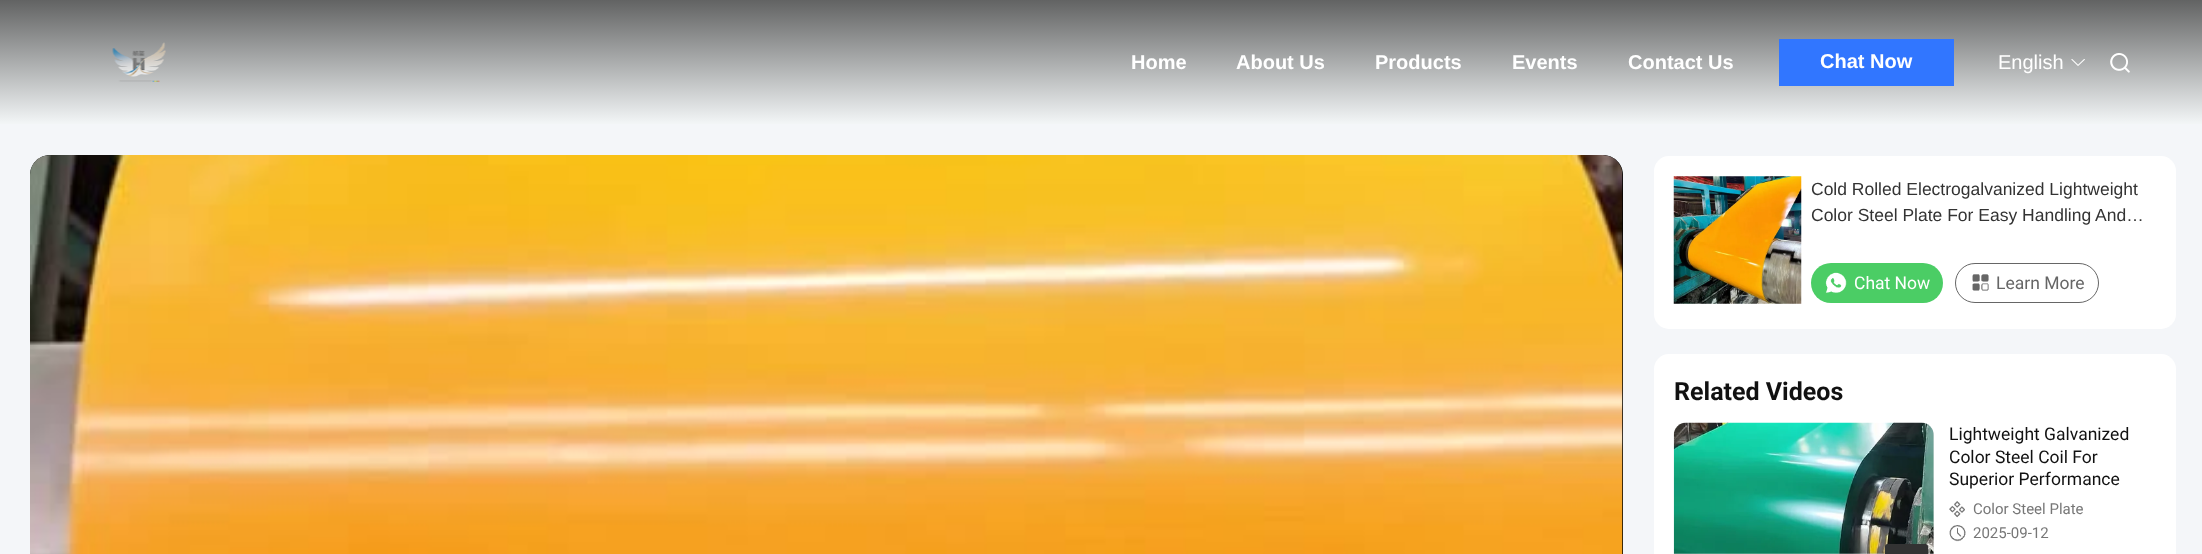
async function draw(canvas) {
	canvas.width = 2202;
	canvas.height = 554;
	const c = canvas.getContext('2d');
	c.miterLimit = 4;
	c.fontKerning = 'normal';
	async function loadImage(src) {
		const img = new Image();
		img.src = src;
		await img.decode();
		return img;
	}
	let gradient;

	c.fillStyle = '#f4f6f9';
	c.fillRect(0, 0, 2202, 554);
	gradient = c.createLinearGradient(1101, 0, 1101, 125);
	gradient.addColorStop(0, '#626363');
	gradient.addColorStop(1, '#f4f7f8');
	c.fillStyle = gradient;
	c.fillRect(0, 0, 2202, 124);
	c.drawImage(await loadImage('img1.png'), 112, 42, 54, 40);
	c.font = 'bold 20px Liberation Sans';
	c.fillStyle = '#fff';
	for (const [text, x, y] of [
		['Home', 1131, 69],
		['About Us', 1236, 69],
		['Products', 1375, 69],
		['Events', 1512, 69],
		['Contact Us', 1628, 69],
	]) {
		c.fillText(text, x, y);
	}
	c.fillStyle = '#3176ff';
	c.fillRect(1779, 39, 175, 47);
	c.fillStyle = '#fff';
	c.fillText('Chat Now', 1820, 68);
	c.font = '20px Liberation Sans';
	c.fillText('English', 1998, 69);
	c.drawImage(await loadImage('img2.png'), 2071, 59, 14, 7);
	c.drawImage(await loadImage('img3.png'), 2110, 53, 20, 20);
	c.fillStyle = '#000';
	c.beginPath();
	c.moveTo(50, 155);
	c.lineTo(1603, 155);
	c.bezierCurveTo(1614, 155, 1623, 164, 1623, 175);
	c.lineTo(1623, 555);
	c.lineTo(30, 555);
	c.lineTo(30, 175);
	c.bezierCurveTo(30, 164, 39, 155, 50, 155);
	c.closePath();
	c.fill();
	c.drawImage(await loadImage('img4.png'), 30, 155, 1593, 399);
	c.fillStyle = '#fff';
	c.beginPath();
	c.roundRect(1654, 156, 522, 173, 15);
	c.fill();
	c.drawImage(await loadImage('img5.png'), 1673, 176, 129, 128);
	c.font = '17.5px Liberation Sans';
	c.fillStyle = '#333';
	c.fillText('Cold Rolled Electrogalvanized Lightweight', 1811, 195);
	c.fillText('Color Steel Plate For Easy Handling And…', 1811, 221);
	c.fillStyle = '#4bcd65';
	c.beginPath();
	c.roundRect(1811, 263, 132, 40, 20);
	c.fill();
	c.drawImage(await loadImage('img6.png'), 1825, 272, 22, 21);
	c.font = '17.5px Roboto';
	c.fillStyle = '#fff';
	c.fillText('Chat Now', 1854, 289);
	c.beginPath();
	c.roundRect(1955.5, 263.5, 143, 39, 19.5);
	c.strokeStyle = '#666';
	c.stroke();
	c.drawImage(await loadImage('img7.png'), 1972, 274, 17, 17);
	c.fillStyle = '#666';
	c.fillText('Learn More', 1996, 289);
	c.fillStyle = '#fff';
	c.beginPath();
	c.roundRect(1654, 354, 522, 200, [15, 15, 0, 0]);
	c.fill();
	c.font = 'bold 25px Roboto';
	c.fillStyle = '#111';
	c.fillText('Related Videos', 1674, 400);
	c.fillStyle = '#eee';
	c.beginPath();
	c.roundRect(1674, 423, 260, 131, [13, 13, 0, 0]);
	c.fill();
	c.drawImage(await loadImage('img8.png'), 1673, 422, 261, 132);
	c.fillStyle = '#333';
	c.beginPath();
	c.roundRect(1885, 544, 43, 10, [2.5, 2.5, 0, 0]);
	c.fill();
	c.font = '17.5px Roboto';
	c.fillStyle = '#111';
	for (const [text, x, y] of [
		['Lightweight Galvanized', 1949, 440],
		['Color Steel Coil For', 1949, 463],
		['Superior Performance', 1949, 485],
	]) {
		c.fillText(text, x, y);
	}
	c.drawImage(await loadImage('img9.png'), 1949, 501, 16, 17);
	c.font = '15px Roboto';
	c.fillStyle = '#777';
	c.fillText('Color Steel Plate', 1973, 514);
	c.drawImage(await loadImage('img10.png'), 1949, 525, 17, 17);
	c.fillText('2025-09-12', 1973, 538);
}

draw(document.querySelector('canvas'));
